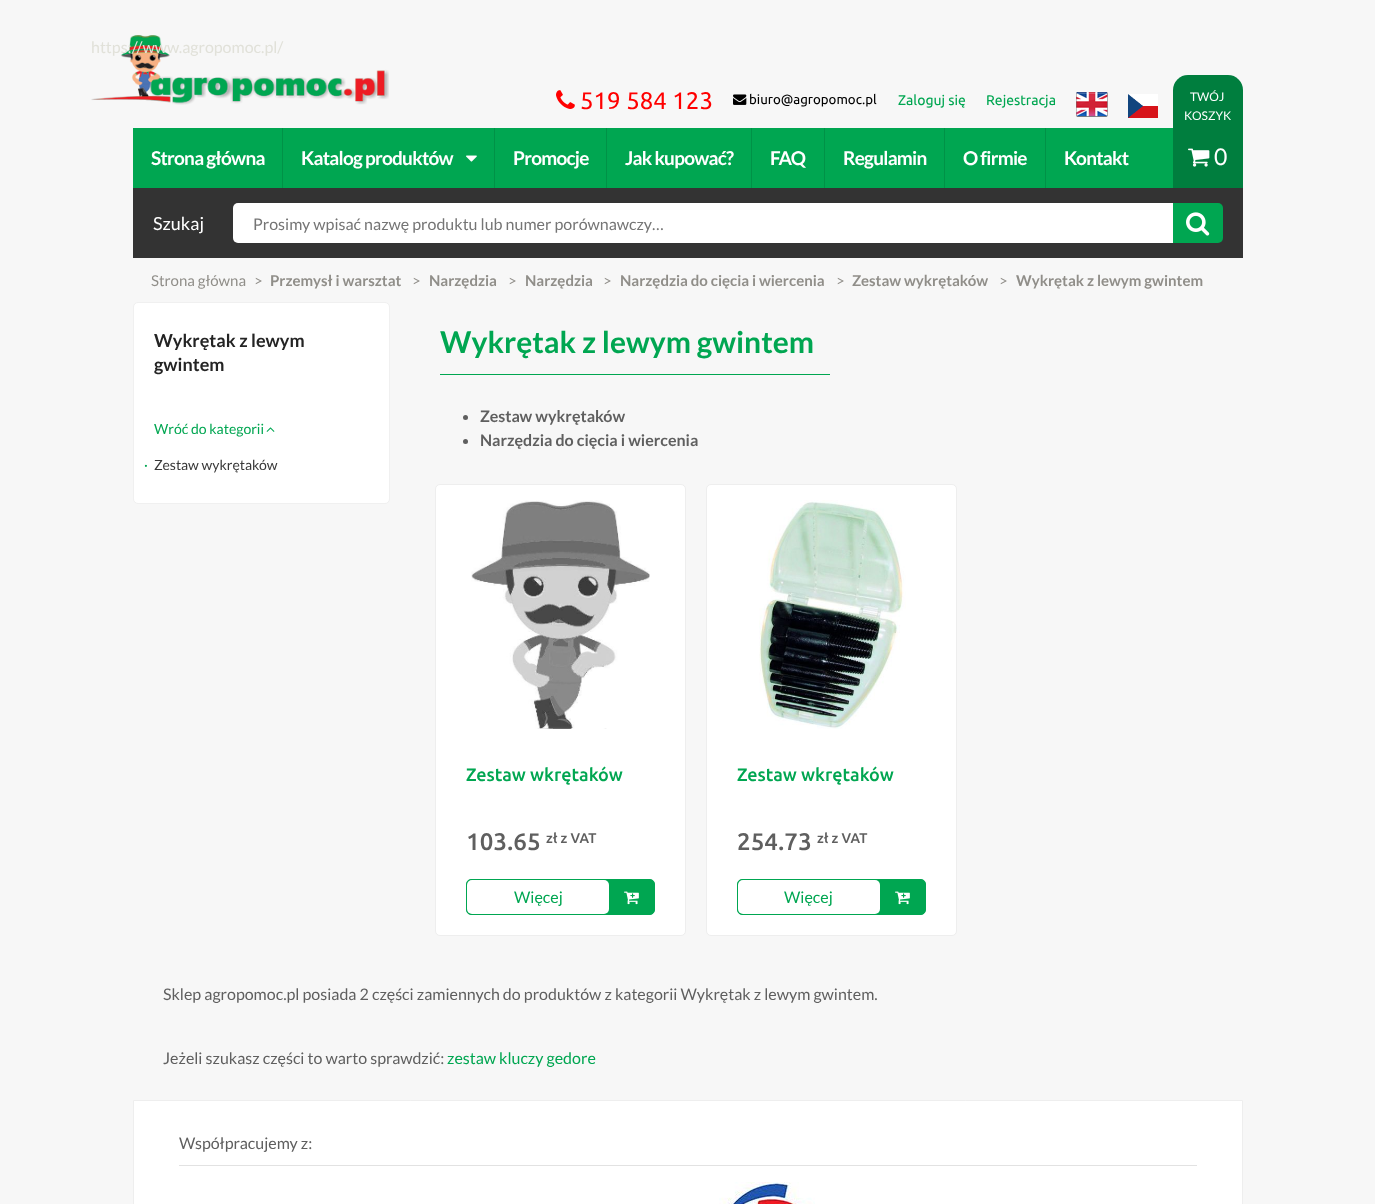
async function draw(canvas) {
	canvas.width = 1375;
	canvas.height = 1204;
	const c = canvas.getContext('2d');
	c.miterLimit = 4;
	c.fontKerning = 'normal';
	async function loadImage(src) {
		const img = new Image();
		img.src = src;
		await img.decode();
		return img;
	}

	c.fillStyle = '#f7f7f7';
	c.fillRect(0, 0, 1375, 1204);
	c.drawImage(await loadImage('img1.png'), 91, 35, 298, 70);
	c.font = '16px Lato';
	c.fillStyle = '#e1e1d9';
	c.fillText('https://www.agropomoc.pl/', 91, 53);
	c.drawImage(await loadImage('img2.png'), 556, 90, 19, 19);
	c.font = '24px Ubuntu';
	c.fillStyle = '#f00';
	c.fillText('519 584 123', 580, 109);
	c.drawImage(await loadImage('img3.png'), 733, 94, 14, 11);
	c.font = '13.25px Ubuntu';
	c.fillStyle = '#000';
	c.fillText('biuro@agropomoc.pl', 749, 104);
	c.font = '14px Ubuntu';
	c.fillStyle = '#00a651';
	c.fillText('Zaloguj się', 898, 105);
	c.fillText('Rejestracja', 986, 105);
	c.drawImage(await loadImage('img4.png'), 1076, 92, 32, 25);
	c.drawImage(await loadImage('img5.png'), 1128, 94, 30, 24);
	c.fillStyle = '#007e3e';
	c.beginPath();
	c.roundRect(1173, 75, 70, 113, [15, 15, 0, 0]);
	c.fill();
	c.font = '12px Lato';
	c.fillStyle = '#fff';
	c.fillText('TWÓJ', 1190, 101);
	c.fillText('KOSZYK', 1184, 120);
	c.drawImage(await loadImage('img6.png'), 1188, 148, 22, 19);
	c.font = '23px Lato';
	c.fillText('0', 1214, 165);
	c.fillStyle = '#00a651';
	c.fillRect(133, 128, 1040, 60);
	c.fillStyle = '#009247';
	c.fillRect(282, 128, 1, 60);
	c.letterSpacing = '-0.75px';
	c.font = 'bold 19px Lato';
	c.fillStyle = '#fff';
	c.fillText('Strona główna', 151, 165);
	c.fillStyle = '#009247';
	c.fillRect(494, 128, 1, 60);
	c.fillStyle = '#fff';
	c.fillText('Katalog produktów', 301, 165);
	c.drawImage(await loadImage('img7.png'), 466, 155, 11, 7);
	c.fillStyle = '#009247';
	c.fillRect(606, 128, 1, 60);
	c.fillStyle = '#fff';
	c.fillText('Promocje', 513, 165);
	c.fillStyle = '#009247';
	c.fillRect(751, 128, 1, 60);
	c.fillStyle = '#fff';
	c.fillText('Jak kupować?', 625, 165);
	c.fillStyle = '#009247';
	c.fillRect(824, 128, 1, 60);
	c.fillStyle = '#fff';
	c.fillText('FAQ', 770, 165);
	c.fillStyle = '#009247';
	c.fillRect(944, 128, 1, 60);
	c.fillStyle = '#fff';
	c.fillText('Regulamin', 843, 165);
	c.fillStyle = '#009247';
	c.fillRect(1045, 128, 1, 60);
	c.fillStyle = '#fff';
	c.fillText('O firmie', 963, 165);
	c.fillText('Kontakt', 1064, 165);
	c.fillStyle = '#333';
	c.fillRect(133, 188, 1110, 70);
	c.letterSpacing = '0px';
	c.font = '18px Lato';
	c.fillStyle = '#fff';
	c.fillText('Szukaj', 153, 230);
	c.beginPath();
	c.roundRect(233, 203, 940, 40, [5, 0, 0, 5]);
	c.fill();
	c.font = '16px Lato';
	c.fillStyle = '#757575';
	c.fillText('Prosimy wpisać nazwę produktu lub numer porównawczy…', 253, 230);
	c.fillStyle = '#00a651';
	c.beginPath();
	c.roundRect(1173, 203, 50, 40, [0, 5, 5, 0]);
	c.fill();
	c.drawImage(await loadImage('img8.png'), 1186, 212, 24, 24);
	c.font = '15px Lato';
	c.fillStyle = '#908e89';
	c.fillText('Strona główna', 151, 286);
	c.fillText('>', 254, 286);
	c.font = 'bold 15px Lato';
	c.fillText('Przemysł i warsztat', 270, 286);
	c.font = '15px Lato';
	c.fillText('>', 412, 286);
	c.font = 'bold 15px Lato';
	c.fillText('Narzędzia', 429, 286);
	c.font = '15px Lato';
	c.fillText('>', 508, 286);
	c.font = 'bold 15px Lato';
	c.fillText('Narzędzia', 525, 286);
	c.font = '15px Lato';
	c.fillText('>', 603, 286);
	c.font = 'bold 15px Lato';
	c.fillText('Narzędzia do cięcia i wiercenia', 620, 286);
	c.font = '15px Lato';
	c.fillText('>', 836, 286);
	c.font = 'bold 15px Lato';
	c.fillText('Zestaw wykrętaków', 852, 286);
	c.font = '15px Lato';
	c.fillText('>', 999, 286);
	c.font = 'bold 15px Lato';
	c.fillText('Wykrętak z lewym gwintem', 1016, 286);
	c.fillStyle = '#fff';
	c.beginPath();
	c.roundRect(133.5, 302.5, 256, 201, 4.5);
	c.fill();
	c.strokeStyle = '#f0f0f0';
	c.stroke();
	c.font = 'bold 18px Lato';
	c.fillStyle = '#242424';
	c.fillText('Wykrętak z lewym', 154, 347);
	c.fillText('gwintem', 154, 371);
	c.font = '14px Lato';
	c.fillStyle = '#00a651';
	c.fillText('Wróć do kategorii', 154, 434);
	c.drawImage(await loadImage('img9.png'), 266, 427, 9, 5);
	c.fillText('·', 144, 470);
	c.fillStyle = '#383838';
	c.fillText('Zestaw wykrętaków', 154, 470);
	c.fillStyle = '#00a651';
	c.fillRect(440, 374, 390, 1);
	c.font = 'bold 30px Lato';
	c.fillText('Wykrętak z lewym gwintem', 440, 353);
	c.fillStyle = '#5f5f5f';
	c.beginPath();
	c.arc(465.5, 417.5, 2.5, 0, 2 * Math.PI);
	c.fill();
	c.font = 'bold 16px Lato';
	c.fillText('Zestaw wykrętaków', 480, 422);
	c.beginPath();
	c.arc(465.5, 441.5, 2.5, 0, 2 * Math.PI);
	c.fill();
	c.fillText('Narzędzia do cięcia i wiercenia', 480, 446);
	c.fillStyle = '#fff';
	c.beginPath();
	c.roundRect(435.5, 484.5, 250, 451, 4.5);
	c.fill();
	c.strokeStyle = '#eee';
	c.stroke();
	c.drawImage(await loadImage('img10.png'), 471, 500, 179, 229);
	c.font = '500 18px Ubuntu';
	c.fillStyle = '#00a651';
	c.fillText('Zestaw wkrętaków', 466, 781);
	c.font = '500 24px Ubuntu';
	c.fillStyle = '#5f5f5f';
	c.fillText('103.65', 466, 850);
	c.font = '500 14px Ubuntu';
	c.fillText('zł z VAT', 546, 843);
	c.fillStyle = '#00a651';
	c.beginPath();
	c.roundRect(466.5, 879.5, 188, 35, 4.5);
	c.fill();
	c.strokeStyle = '#00a651';
	c.stroke();
	c.fillStyle = '#fff';
	c.beginPath();
	c.roundRect(467, 880, 142, 34, 5);
	c.fill();
	c.font = '16px Lato';
	c.fillStyle = '#00a651';
	c.fillText('Więcej', 514, 903);
	c.drawImage(await loadImage('img11.png'), 624, 891, 15, 14);
	c.fillStyle = '#fff';
	c.beginPath();
	c.roundRect(706.5, 484.5, 250, 451, 4.5);
	c.fill();
	c.strokeStyle = '#eee';
	c.stroke();
	c.drawImage(await loadImage('img12.png'), 759, 500, 147, 229);
	c.font = '500 18px Ubuntu';
	c.fillStyle = '#00a651';
	c.fillText('Zestaw wkrętaków', 737, 781);
	c.font = '500 24px Ubuntu';
	c.fillStyle = '#5f5f5f';
	c.fillText('254.73', 737, 850);
	c.font = '500 14px Ubuntu';
	c.fillText('zł z VAT', 817, 843);
	c.fillStyle = '#00a651';
	c.beginPath();
	c.roundRect(737.5, 879.5, 188, 35, 4.5);
	c.fill();
	c.strokeStyle = '#00a651';
	c.stroke();
	c.fillStyle = '#fff';
	c.beginPath();
	c.roundRect(738, 880, 142, 34, 5);
	c.fill();
	c.font = '16px Lato';
	c.fillStyle = '#00a651';
	c.fillText('Więcej', 784, 903);
	c.drawImage(await loadImage('img11.png'), 895, 891, 15, 14);
	c.fillStyle = '#5f5f5f';
	c.fillText('Sklep agropomoc.pl posiada 2 części zamiennych do produktów z kategorii Wykrętak z lewym gwintem.', 163, 1000);
	c.fillText('Jeżeli szukasz części to warto sprawdzić:', 163, 1064);
	c.fillStyle = '#00a651';
	c.fillText('zestaw kluczy gedore', 447, 1064);
	c.fillStyle = '#fff';
	c.beginPath();
	c.rect(133.5, 1100.5, 1109, 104);
	c.fill();
	c.strokeStyle = '#eee';
	c.stroke();
	c.fillStyle = '#e2e2e2';
	c.fillRect(179, 1165, 1018, 1);
	c.fillStyle = '#5f5f5f';
	c.fillText('Współpracujemy z:', 179, 1149);
	c.drawImage(await loadImage('img13.png'), 719, 1182, 96, 22);
}

draw(document.querySelector('canvas'));
